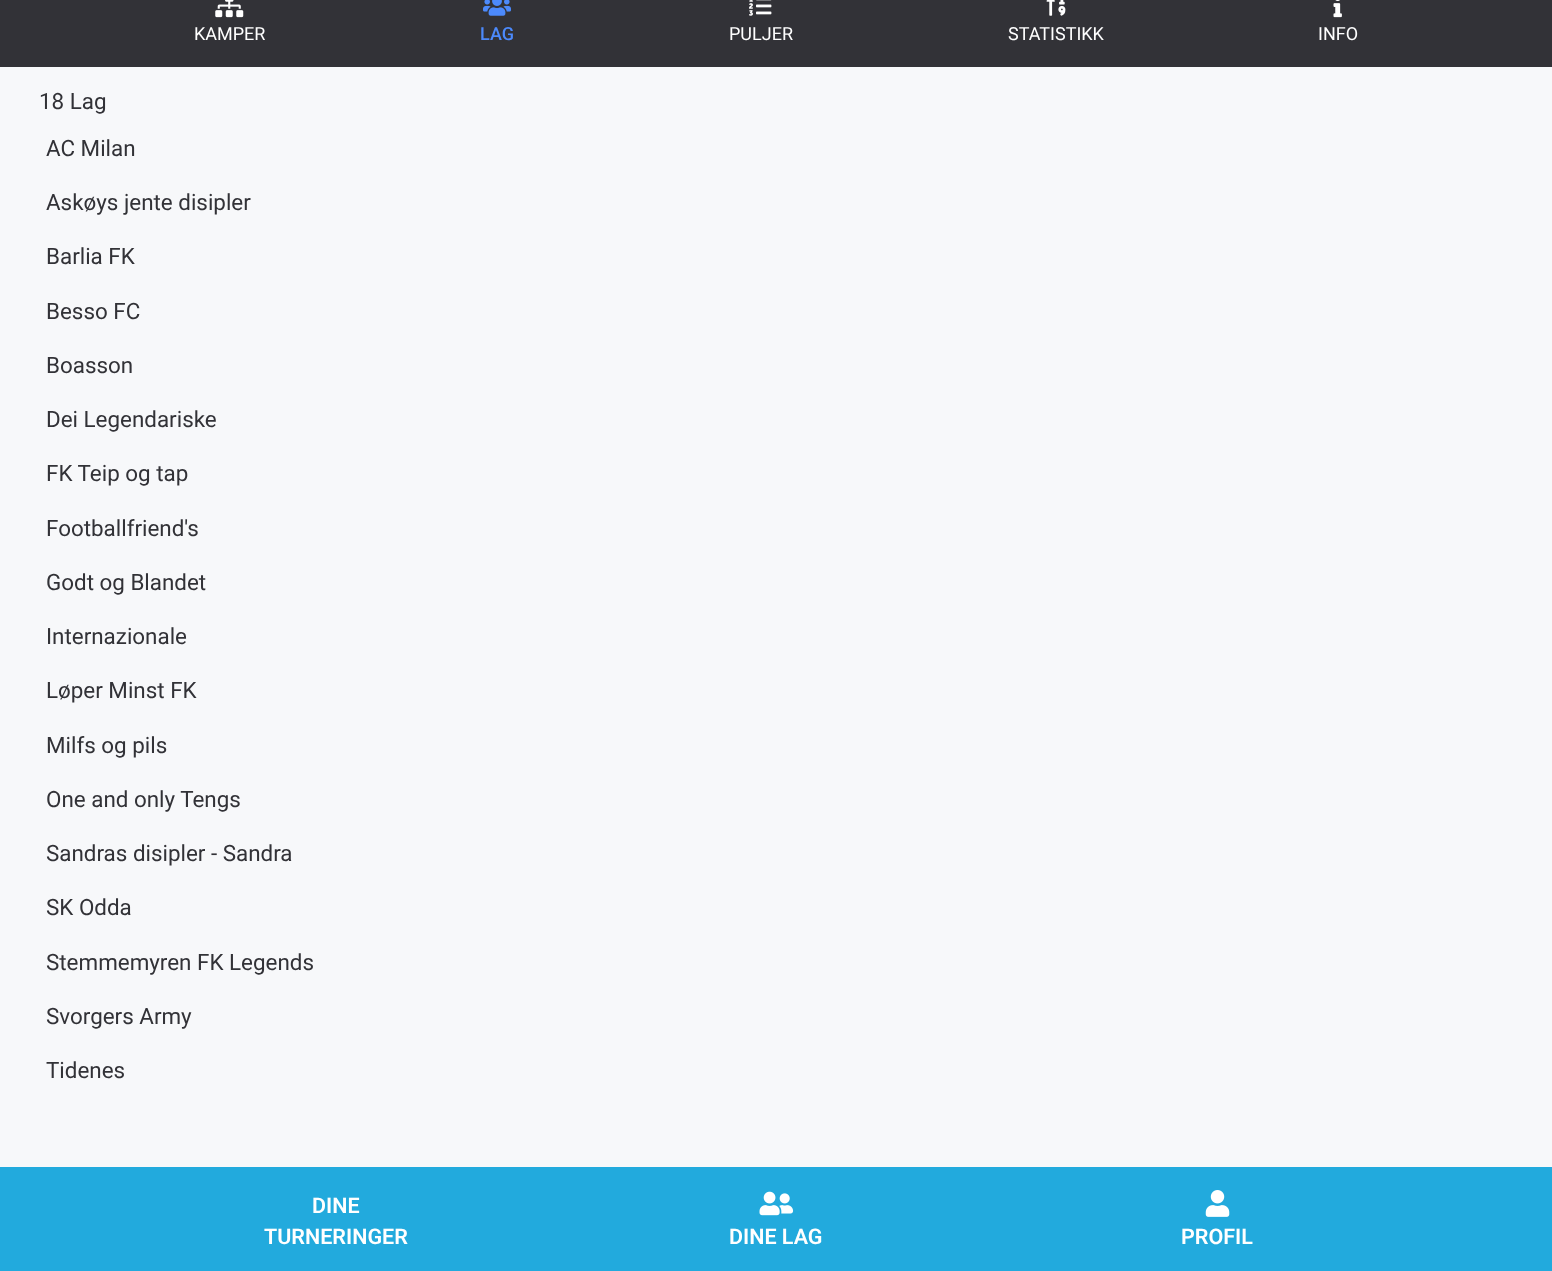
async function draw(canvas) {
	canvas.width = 1552;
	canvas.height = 1271;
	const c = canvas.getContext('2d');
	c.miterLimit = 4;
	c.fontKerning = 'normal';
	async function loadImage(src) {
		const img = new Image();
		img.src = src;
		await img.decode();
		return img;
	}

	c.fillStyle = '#f7f8fa';
	c.fillRect(0, 0, 1552, 1271);
	c.fillStyle = '#323237';
	c.fillRect(0, 0, 1552, 67);
	c.drawImage(await loadImage('img1.png'), 215, 0, 29, 18);
	c.font = '18px Roboto';
	c.fillStyle = '#fff';
	c.fillText('KAMPER', 194, 40);
	c.drawImage(await loadImage('img2.png'), 483, 0, 28, 16);
	c.font = '500 18px Roboto';
	c.fillStyle = '#4c8afc';
	c.fillText('LAG', 480, 40);
	c.drawImage(await loadImage('img3.png'), 749, 0, 23, 16);
	c.font = '18px Roboto';
	c.fillStyle = '#fff';
	c.fillText('PULJER', 729, 40);
	c.drawImage(await loadImage('img4.png'), 1046, 0, 20, 16);
	c.fillText('STATISTIKK', 1008, 40);
	c.drawImage(await loadImage('img5.png'), 1333, 0, 9, 18);
	c.fillText('INFO', 1318, 40);
	c.font = '22.4px Roboto';
	c.fillStyle = '#323237';
	for (const [text, x, y] of [
		['18 Lag', 39, 109],
		['AC Milan', 46, 156],
		['Askøys jente disipler', 46, 210],
		['Barlia FK', 46, 264],
		['Besso FC', 46, 319],
		['Boasson', 46, 373],
		['Dei Legendariske', 46, 427],
		['FK Teip og tap', 46, 481],
		['Footballfriend\'s', 46, 536],
		['Godt og Blandet', 46, 590],
		['Internazionale', 46, 644],
		['Løper Minst FK', 46, 698],
		['Milfs og pils', 46, 753],
		['One and only Tengs', 46, 807],
		['Sandras disipler - Sandra', 46, 861],
		['SK Odda', 46, 915],
		['Stemmemyren FK Legends', 46, 970],
		['Svorgers Army', 46, 1024],
		['Tidenes', 46, 1078],
	]) {
		c.fillText(text, x, y);
	}
	c.fillStyle = '#2ad';
	c.fillRect(0, 1167, 1552, 104);
	c.font = '600 21.5px Roboto';
	c.fillStyle = '#fff';
	c.fillText('DINE', 312, 1213);
	c.fillText('TURNERINGER', 264, 1244);
	c.drawImage(await loadImage('img6.png'), 759, 1191, 35, 25);
	c.fillText('DINE LAG', 729, 1244);
	c.drawImage(await loadImage('img7.png'), 1205, 1190, 25, 27);
	c.fillText('PROFIL', 1181, 1244);
}

draw(document.querySelector('canvas'));
